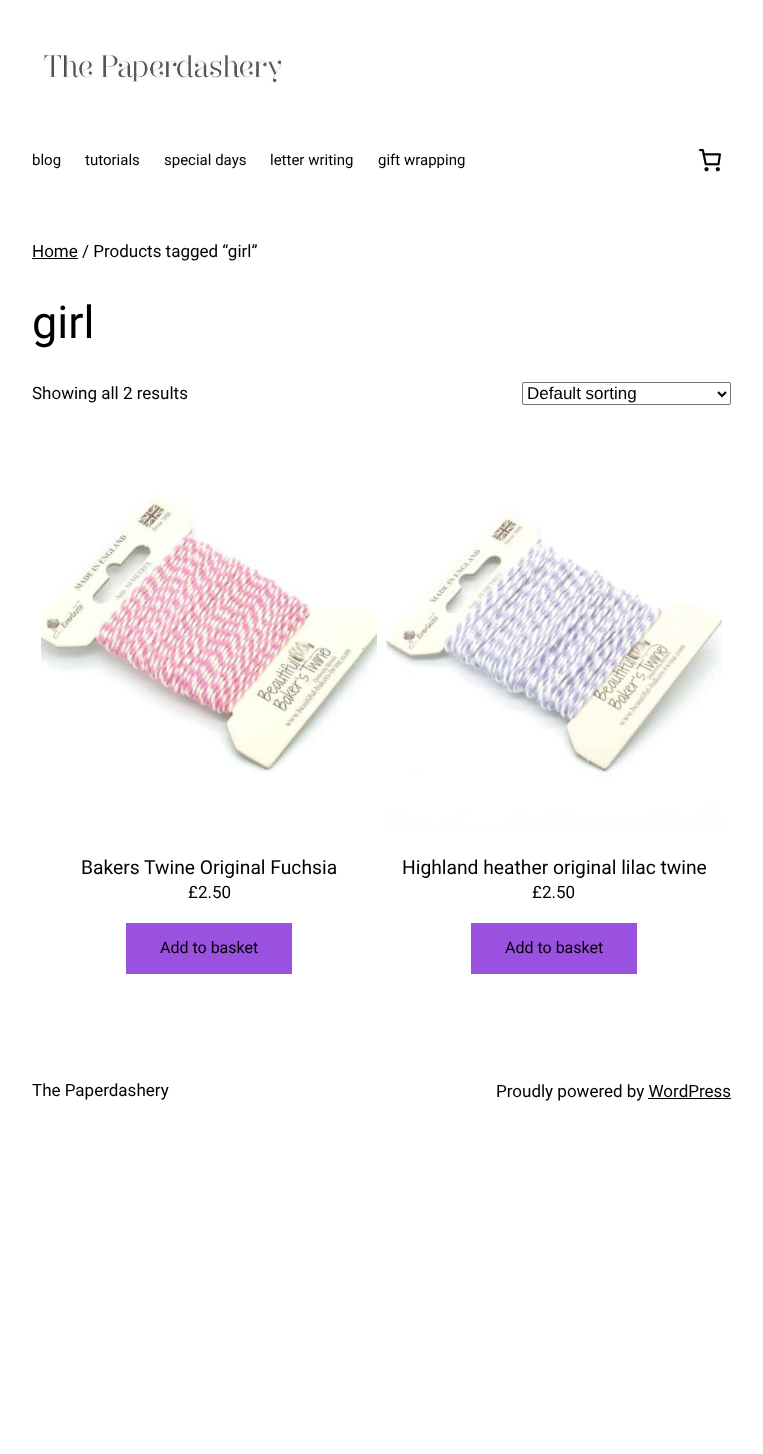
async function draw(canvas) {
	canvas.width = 763;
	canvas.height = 1454;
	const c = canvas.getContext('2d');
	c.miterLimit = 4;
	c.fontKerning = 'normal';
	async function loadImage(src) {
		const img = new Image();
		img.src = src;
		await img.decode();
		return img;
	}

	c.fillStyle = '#fff';
	c.fillRect(0, 0, 763, 1454);
	c.drawImage(await loadImage('img1.png'), 43, 53, 239, 30);
	c.font = '15px Roboto';
	c.fillStyle = '#000';
	for (const [text, x, y] of [
		['blog', 32, 165],
		['tutorials', 85, 165],
		['special days', 164, 165],
		['letter writing', 270, 165],
		['gift wrapping', 378, 165],
	]) {
		c.fillText(text, x, y);
	}
	c.drawImage(await loadImage('img2.png'), 699, 149, 22, 23);
	c.fillRect(32, 258, 46, 1);
	c.font = '17px Roboto';
	c.fillText('Home / Products tagged “girl”', 32, 257);
	c.font = '45px Roboto';
	c.fillText('girl', 32, 338);
	c.font = '17px Roboto';
	c.fillText('Showing all 2 results', 32, 399);
	c.beginPath();
	c.roundRect(522.5, 382.5, 208, 22, 1.5);
	c.strokeStyle = '#767676';
	c.stroke();
	c.beginPath();
	c.moveTo(718, 392);
	c.lineTo(722, 396);
	c.lineTo(726, 392);
	c.strokeStyle = '#000';
	c.lineWidth = 2;
	c.stroke();
	c.font = '17px Liberation Sans';
	c.fillText('Default sorting', 527, 399);
	c.drawImage(await loadImage('img3.png'), 41, 493, 336, 282);
	c.font = '19.25px Roboto';
	c.fillText('Bakers Twine Original Fuchsia', 81, 874);
	c.font = '17px Roboto';
	c.fillText('£2.50', 188, 898);
	c.fillStyle = '#9b51e0';
	c.fillRect(126, 923, 166, 51);
	c.font = '16px Roboto';
	c.fillStyle = '#000';
	c.fillText('Add to basket', 160, 953);
	c.drawImage(await loadImage('img4.png'), 386, 507, 336, 325);
	c.font = '19.25px Roboto';
	c.fillText('Highland heather original lilac twine', 402, 874);
	c.font = '17px Roboto';
	c.fillText('£2.50', 532, 898);
	c.fillStyle = '#9b51e0';
	c.fillRect(471, 923, 166, 51);
	c.font = '16px Roboto';
	c.fillStyle = '#000';
	c.fillText('Add to basket', 505, 953);
	c.font = '17px Roboto';
	c.fillText('The Paperdashery', 32, 1096);
	c.fillText('Proudly powered by WordPress', 496, 1097);
	c.fillRect(648, 1098, 83, 1);
}

draw(document.querySelector('canvas'));
